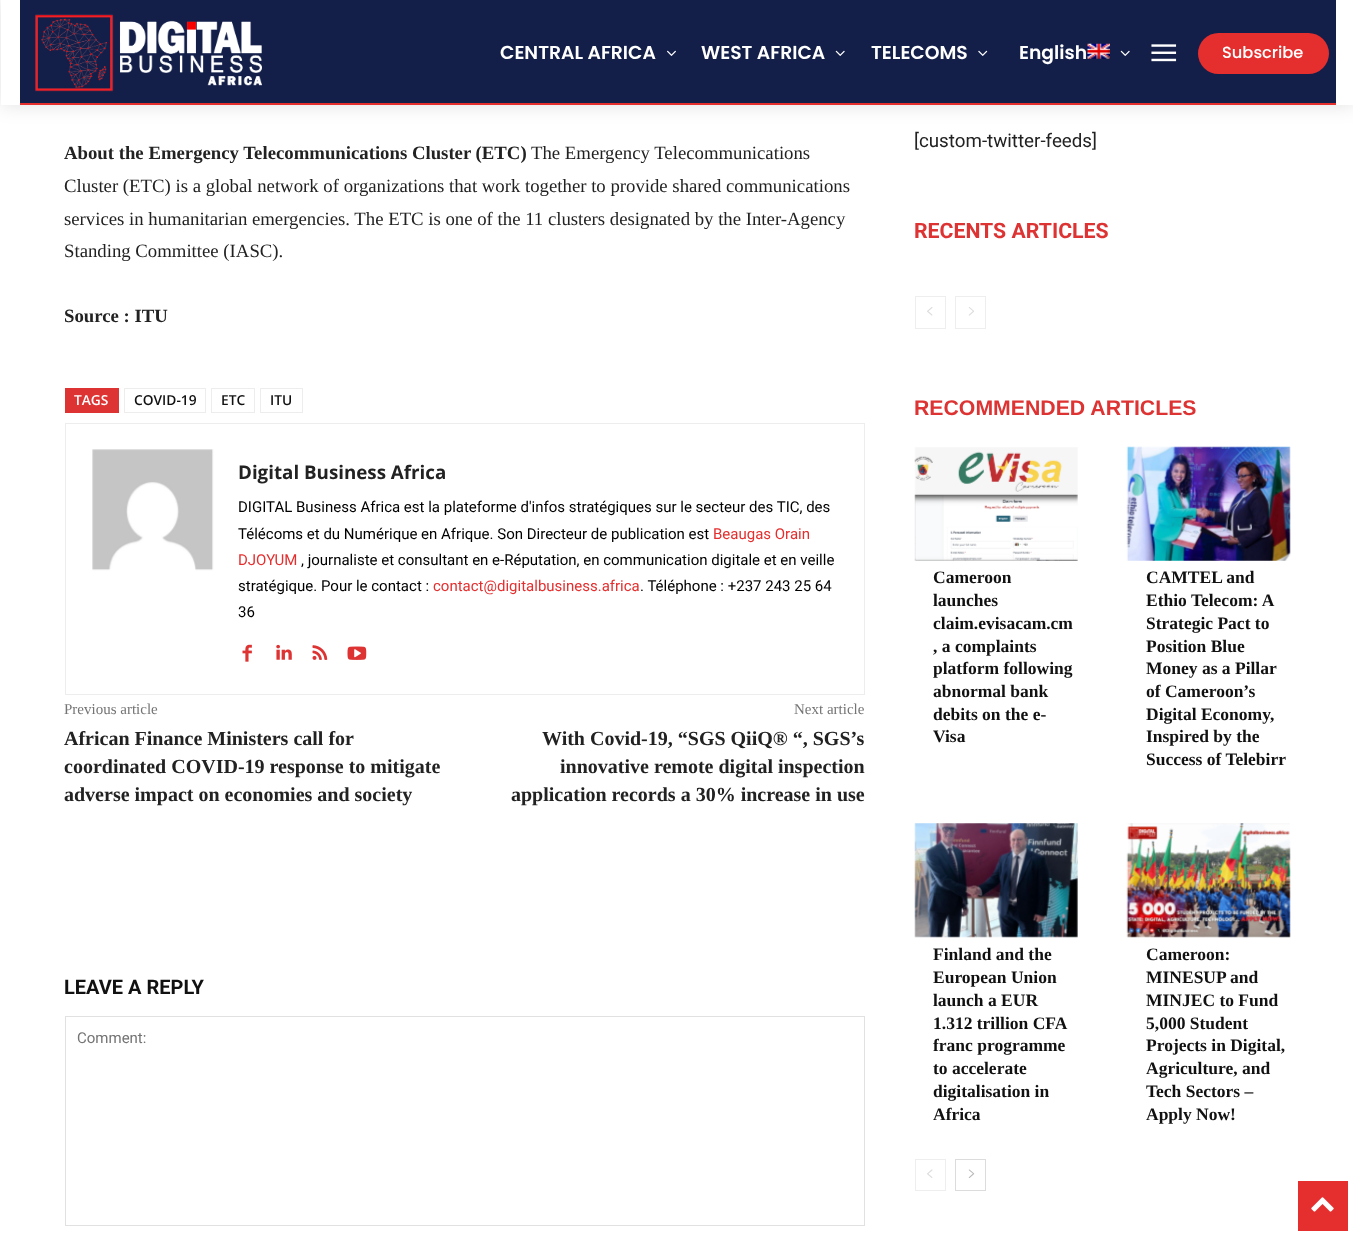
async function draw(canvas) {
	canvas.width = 1353;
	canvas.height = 1236;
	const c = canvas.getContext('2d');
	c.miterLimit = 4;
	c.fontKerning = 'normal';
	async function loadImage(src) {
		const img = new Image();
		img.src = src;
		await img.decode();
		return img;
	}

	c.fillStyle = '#fff';
	c.fillRect(0, 0, 1353, 1236);
	c.fillStyle = '#131f49';
	c.fillRect(20, 0, 1316, 103);
	c.fillStyle = '#e52e2e';
	c.fillRect(20, 103, 1316, 2);
	c.drawImage(await loadImage('img1.png'), 35, 14, 227, 78);
	c.drawImage(await loadImage('img6.png'), 1151, 44, 26, 18);
	c.beginPath();
	c.roundRect(1198, 33, 131, 41, 20.5);
	c.fill();
	c.save();
	c.beginPath();
	c.moveTo(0, 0);
	c.lineTo(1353, 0);
	c.lineTo(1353, 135);
	c.lineTo(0, 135);
	c.closePath();
	c.moveTo(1, 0);
	c.lineTo(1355, 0);
	c.lineTo(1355, 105);
	c.lineTo(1, 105);
	c.closePath();
	c.clip('evenodd');
	c.fillStyle = '#0000001f';
	c.filter = 'blur(9.5px)';
	c.beginPath();
	c.rect(1, 0, 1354, 105);
	c.fill();
	c.filter = 'none';
	c.restore();
	c.font = '600 18.75px Poppins';
	c.fillStyle = '#fff';
	c.fillText('CENTRAL AFRICA', 500, 59);
	c.drawImage(await loadImage('img2.png'), 667, 50, 9, 6);
	c.fillText('WEST AFRICA', 701, 59);
	c.drawImage(await loadImage('img3.png'), 835, 50, 10, 6);
	c.fillText('TELECOMS', 871, 59);
	c.drawImage(await loadImage('img4.png'), 978, 50, 10, 6);
	c.fillText('English', 1019, 59);
	c.drawImage(await loadImage('img5.png'), 1087, 43, 23, 16);
	c.drawImage(await loadImage('img3.png'), 1120, 50, 10, 6);
	c.font = '500 16.25px Poppins';
	c.fillText('Subscribe', 1222, 58);
	c.font = 'bold 18.75px Liberation Serif';
	c.fillStyle = '#222';
	c.fillText('About the Emergency Telecommunications Cluster (ETC)', 64, 159);
	c.font = '18.75px Liberation Serif';
	for (const [text, x, y] of [
		['The Emergency Telecommunications', 531, 159],
		['Cluster (ETC) is a global network of organizations that work together to provide shared communications', 64, 192],
		['services in humanitarian emergencies. The ETC is one of the 11 clusters designated by the Inter-Agency', 64, 225],
		['Standing Committee (IASC).', 64, 257],
	]) {
		c.fillText(text, x, y);
	}
	c.font = 'bold 18.75px Liberation Serif';
	c.fillText('Source : ITU', 64, 322);
	c.fillStyle = '#d33';
	c.fillRect(65, 388, 54, 25);
	c.font = '600 13.75px Open Sans';
	c.fillStyle = '#fff';
	c.fillText('TAGS', 74, 405);
	c.strokeStyle = '#ededed';
	c.strokeRect(124.5, 388.5, 81, 24);
	c.fillStyle = '#111';
	c.fillText('COVID-19', 134, 405);
	c.strokeRect(211.5, 388.5, 43, 24);
	c.fillText('ETC', 221, 405);
	c.strokeRect(260.5, 388.5, 42, 24);
	c.fillText('ITU', 270, 405);
	c.strokeRect(65.5, 423.5, 799, 271);
	c.drawImage(await loadImage('img7.png'), 92, 449, 122, 122);
	c.font = 'bold 18.75px Open Sans';
	c.fillStyle = '#222';
	c.fillText('Digital Business Africa', 238, 479);
	c.font = '15px Roboto';
	c.fillStyle = '#000';
	c.fillText('DIGITAL Business Africa est la plateforme d\'infos stratégiques sur le secteur des TIC, des', 238, 512);
	c.fillText('Télécoms et du Numérique en Afrique. Son Directeur de publication est', 238, 539);
	c.fillStyle = '#e52e2e';
	c.fillText('Beaugas Orain', 713, 539);
	c.fillText('DJOYUM', 238, 565);
	c.fillStyle = '#000';
	c.fillText(', journaliste et consultant en e-Réputation, en communication digitale et en veille', 301, 565);
	c.fillText('stratégique. Pour le contact :', 238, 591);
	c.fillStyle = '#e52e2e';
	c.fillText('contact@digitalbusiness.africa', 433, 591);
	c.fillStyle = '#000';
	c.fillText('. Téléphone : +237 243 25 64', 640, 591);
	c.fillText('36', 238, 617);
	c.drawImage(await loadImage('img8.png'), 242, 644, 10, 18);
	c.drawImage(await loadImage('img9.png'), 276, 644, 16, 16);
	c.drawImage(await loadImage('img10.png'), 312, 645, 16, 15);
	c.drawImage(await loadImage('img11.png'), 347, 646, 20, 14);
	c.font = '15px Liberation Serif';
	c.fillStyle = '#747474';
	c.fillText('Previous article', 64, 714);
	c.font = 'bold 20px Liberation Serif';
	c.fillStyle = '#222';
	for (const [text, x, y] of [
		['African Finance Ministers call for', 64, 745],
		['coordinated COVID-19 response to mitigate', 64, 773],
		['adverse impact on economies and society', 64, 801],
	]) {
		c.fillText(text, x, y);
	}
	c.font = '15px Liberation Serif';
	c.fillStyle = '#747474';
	c.fillText('Next article', 794, 714);
	c.font = 'bold 20px Liberation Serif';
	c.fillStyle = '#222';
	for (const [text, x, y] of [
		['With Covid-19, “SGS QiiQ® “, SGS’s', 542, 745],
		['innovative remote digital inspection', 560, 773],
		['application records a 30% increase in use', 511, 801],
	]) {
		c.fillText(text, x, y);
	}
	c.font = 'bold 20px Roboto';
	c.fillStyle = '#111';
	c.fillText('LEAVE A REPLY', 64, 994);
	c.strokeStyle = '#e1e1e1';
	c.strokeRect(65.5, 1016.5, 799, 209);
	c.font = '15px Roboto';
	c.fillStyle = '#747474';
	c.fillText('Comment:', 77, 1043);
	c.font = '18.75px Roboto';
	c.fillStyle = '#222';
	c.fillText('[custom-twitter-feeds]', 914, 147);
	c.font = 'bold 21.25px Roboto';
	c.fillStyle = '#d33';
	c.fillText('RECENTS ARTICLES', 914, 238);
	c.strokeStyle = '#eee';
	c.strokeRect(915.5, 296.5, 30, 32);
	c.drawImage(await loadImage('img12.png'), 927, 307, 6, 9);
	c.strokeRect(955.5, 296.5, 30, 32);
	c.drawImage(await loadImage('img13.png'), 968, 307, 6, 9);
	c.font = 'bold 21.25px Liberation Sans';
	c.fillText('RECOMMENDED ARTICLES', 914, 415);
	c.drawImage(await loadImage('img14.png'), 914, 447, 164, 114);
	c.font = 'bold 17.5px Liberation Serif';
	c.fillStyle = '#111';
	for (const [text, x, y] of [
		['Cameroon', 933, 583],
		['launches', 933, 606],
		['claim.evisacam.cm', 933, 629],
		[', a complaints', 933, 652],
		['platform following', 933, 674],
		['abnormal bank', 933, 697],
		['debits on the e-', 933, 720],
		['Visa', 933, 742],
	]) {
		c.fillText(text, x, y);
	}
	c.drawImage(await loadImage('img15.png'), 1126, 446, 165, 115);
	for (const [text, x, y] of [
		['CAMTEL and', 1146, 583],
		['Ethio Telecom: A', 1146, 606],
		['Strategic Pact to', 1146, 629],
		['Position Blue', 1146, 652],
		['Money as a Pillar', 1146, 674],
		['of Cameroon’s', 1146, 697],
		['Digital Economy,', 1146, 720],
		['Inspired by the', 1146, 742],
		['Success of Telebirr', 1146, 765],
	]) {
		c.fillText(text, x, y);
	}
	c.drawImage(await loadImage('img16.png'), 914, 823, 164, 115);
	for (const [text, x, y] of [
		['Finland and the', 933, 960],
		['European Union', 933, 983],
		['launch a EUR', 933, 1006],
		['1.312 trillion CFA', 933, 1029],
		['franc programme', 933, 1051],
		['to accelerate', 933, 1074],
		['digitalisation in', 933, 1097],
		['Africa', 933, 1120],
	]) {
		c.fillText(text, x, y);
	}
	c.drawImage(await loadImage('img17.png'), 1126, 823, 165, 115);
	for (const [text, x, y] of [
		['Cameroon:', 1146, 960],
		['MINESUP and', 1146, 983],
		['MINJEC to Fund', 1146, 1006],
		['5,000 Student', 1146, 1029],
		['Projects in Digital,', 1146, 1051],
		['Agriculture, and', 1146, 1074],
		['Tech Sectors –', 1146, 1097],
		['Apply Now!', 1146, 1120],
	]) {
		c.fillText(text, x, y);
	}
	c.strokeRect(915.5, 1159.5, 30, 31);
	c.drawImage(await loadImage('img18.png'), 927, 1169, 6, 9);
	c.strokeStyle = '#dcdcdc';
	c.strokeRect(955.5, 1159.5, 30, 31);
	c.drawImage(await loadImage('img19.png'), 968, 1169, 7, 9);
	c.fillStyle = '#e52e2e';
	c.fillRect(1298, 1181, 50, 50);
	c.drawImage(await loadImage('img20.png'), 1311, 1197, 23, 15);
}

draw(document.querySelector('canvas'));
